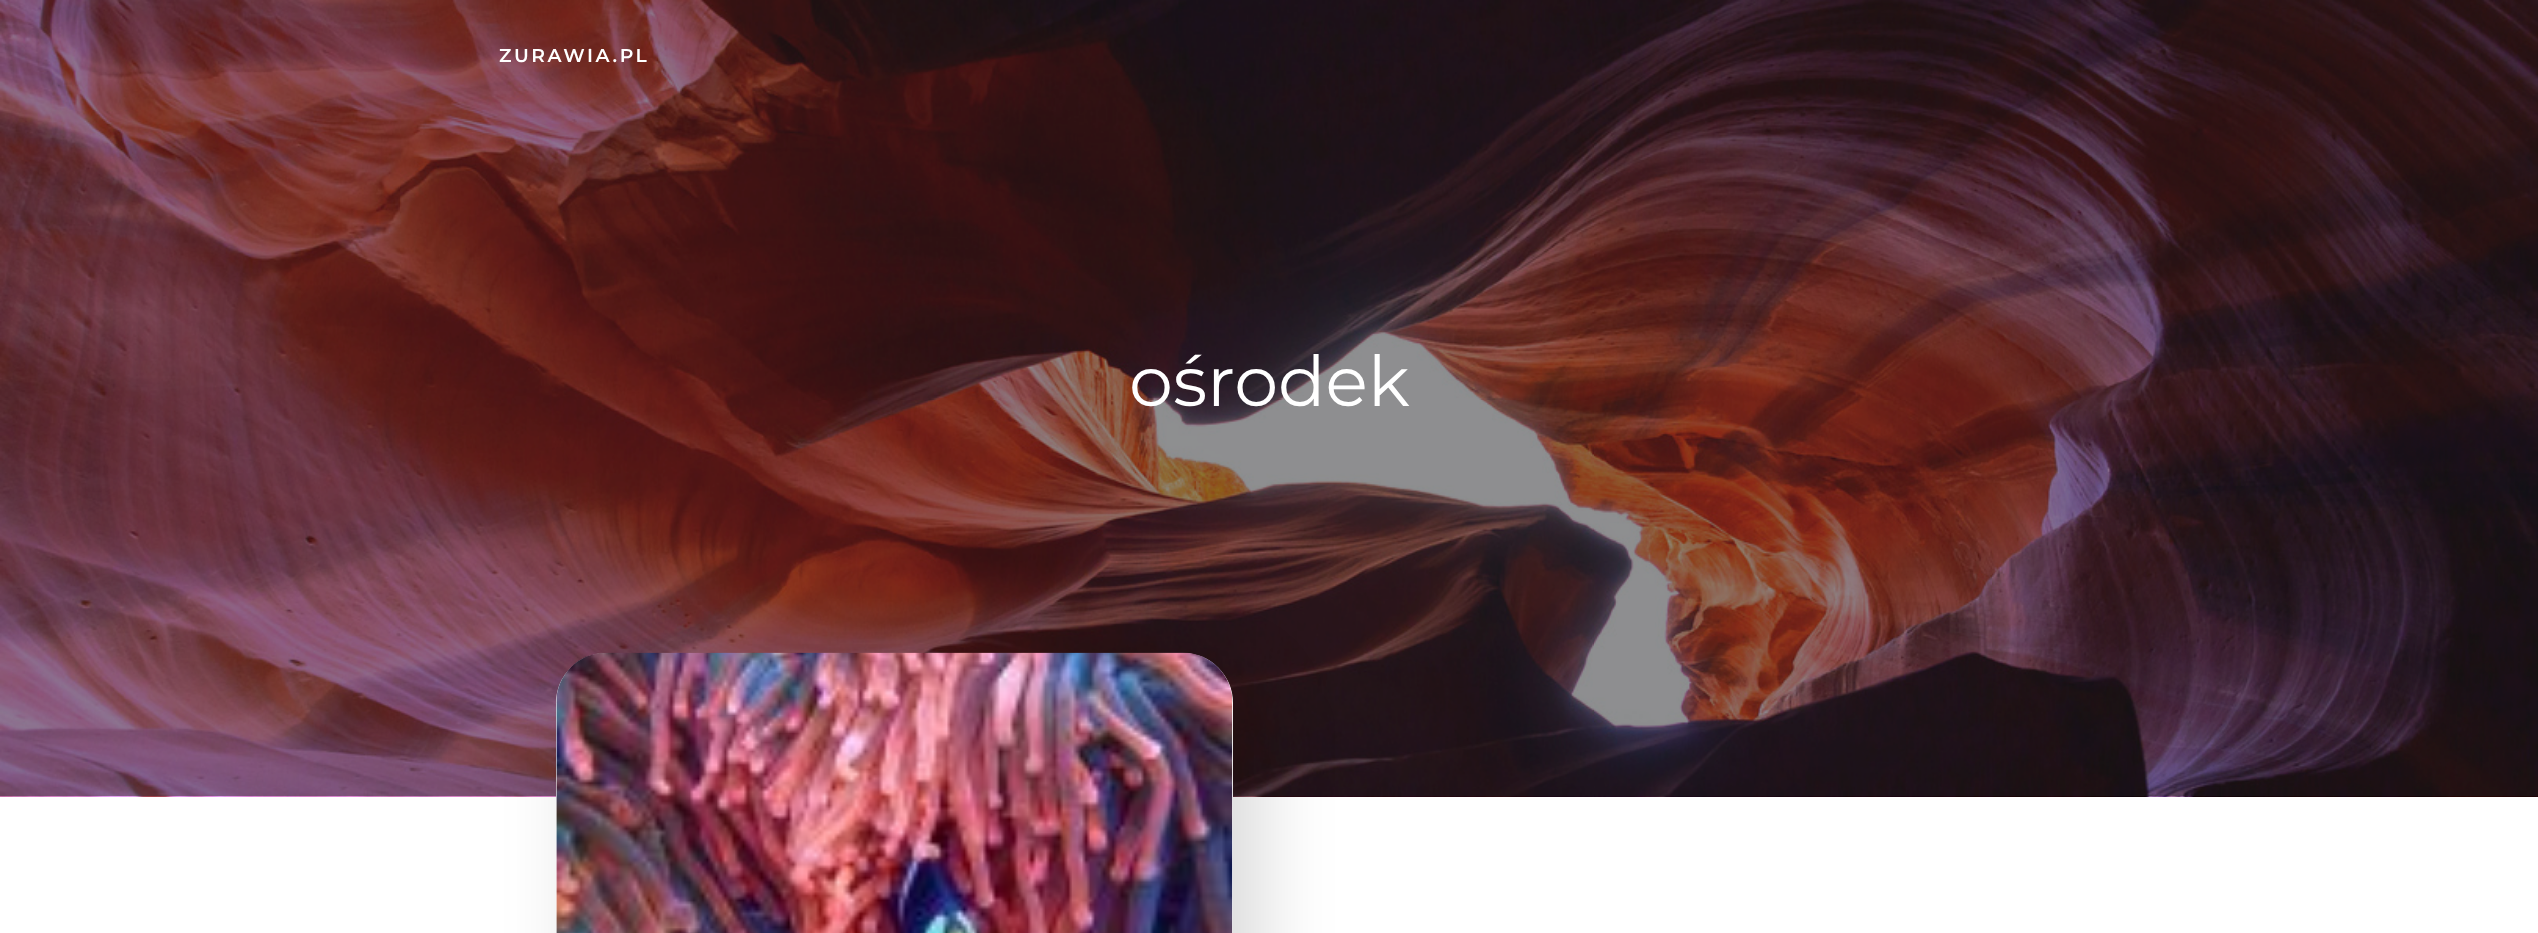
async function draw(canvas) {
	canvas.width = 2538;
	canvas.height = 933;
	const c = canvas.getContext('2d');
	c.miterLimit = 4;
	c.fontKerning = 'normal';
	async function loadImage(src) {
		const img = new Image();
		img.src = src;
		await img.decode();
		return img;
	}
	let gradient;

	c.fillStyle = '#fff';
	c.fillRect(0, 0, 2538, 933);
	c.drawImage(await loadImage('img1.png'), 0, 0, 2538, 797);
	c.letterSpacing = '2.5px';
	c.font = '600 18.75px Montserrat';
	c.fillText('ZURAWIA.PL', 499, 62);
	c.letterSpacing = '0px';
	c.font = '70px Montserrat';
	c.fillText('ośrodek', 1129, 406);
	c.fillStyle = '#00000026';
	c.filter = 'blur(37.5px)';
	c.beginPath();
	c.roundRect(579, 675, 681, 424, 53);
	c.fill();
	c.filter = 'none';
	gradient = c.createLinearGradient(600, 622, 1189, 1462);
	gradient.addColorStop(0.42, '#fff');
	gradient.addColorStop(1, '#efefef');
	c.fillStyle = gradient;
	c.beginPath();
	c.roundRect(556, 653, 677, 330, 50);
	c.fill();
	c.drawImage(await loadImage('img2.png'), 556, 652, 677, 281);
}

draw(document.querySelector('canvas'));
